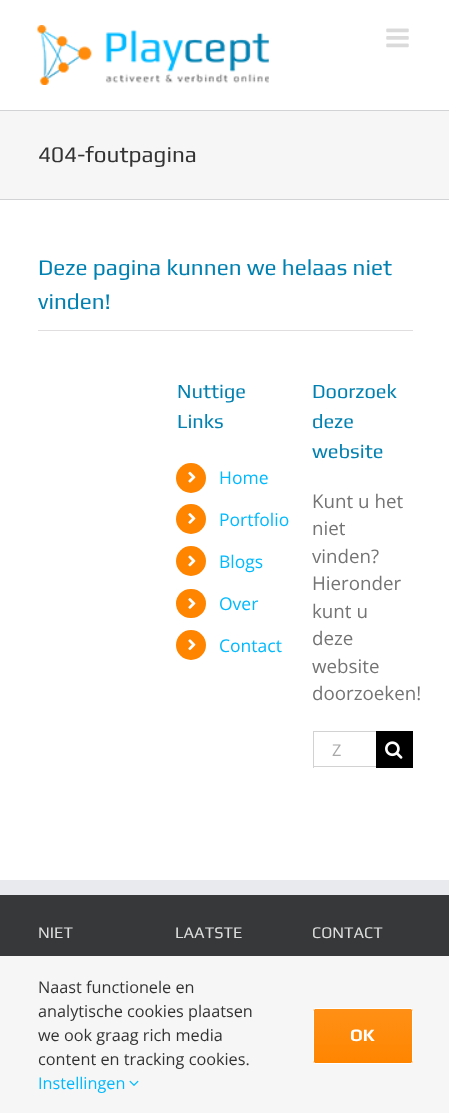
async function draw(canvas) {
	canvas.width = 449;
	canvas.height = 1113;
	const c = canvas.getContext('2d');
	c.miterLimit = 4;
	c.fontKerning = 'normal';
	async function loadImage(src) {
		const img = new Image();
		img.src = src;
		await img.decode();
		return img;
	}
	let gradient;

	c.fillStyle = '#fff';
	c.fillRect(0, 0, 449, 1113);
	c.drawImage(await loadImage('img1.png'), 37, 25, 232, 60);
	c.drawImage(await loadImage('img2.png'), 386, 28, 23, 20);
	for (const [x, y, w, h, color] of [
		[0, 111, 449, 88, '#f6f6f6'],
		[0, 110, 449, 1, '#d2d3d4'],
		[0, 199, 449, 1, '#d2d3d4'],
	]) {
		c.fillStyle = color;
		c.fillRect(x, y, w, h);
	}
	c.font = '22.5px Play';
	c.fillStyle = '#333';
	c.fillText('404-foutpagina', 38, 162);
	c.fillStyle = '#e0dede';
	c.fillRect(38, 330, 375, 1);
	c.fillStyle = '#0081b2';
	c.fillText('Deze pagina kunnen we helaas niet', 38, 275);
	c.fillText('vinden!', 38, 309);
	c.font = '20px Play';
	c.fillText('Nuttige', 177, 398);
	c.fillText('Links', 177, 428);
	c.fillStyle = '#ff8500';
	c.beginPath();
	c.arc(191, 478, 15, 0, 2 * Math.PI);
	c.fill();
	c.drawImage(await loadImage('img3.png'), 188, 471, 8, 12);
	c.font = '17.5px Open Sans';
	c.fillStyle = '#00b9ff';
	c.fillText('Home', 219, 484);
	c.fillStyle = '#ff8500';
	c.beginPath();
	c.arc(191, 519, 15, 0, 2 * Math.PI);
	c.fill();
	c.drawImage(await loadImage('img4.png'), 188, 513, 8, 11);
	c.fillStyle = '#00b9ff';
	c.fillText('Portfolio', 219, 526);
	c.fillStyle = '#ff8500';
	c.beginPath();
	c.arc(191, 561, 15, 0, 2 * Math.PI);
	c.fill();
	c.drawImage(await loadImage('img5.png'), 188, 555, 8, 12);
	c.fillStyle = '#00b9ff';
	c.fillText('Blogs', 219, 568);
	c.fillStyle = '#ff8500';
	c.beginPath();
	c.roundRect(176, 589, 30, 29, 14.5);
	c.fill();
	c.drawImage(await loadImage('img4.png'), 188, 598, 8, 11);
	c.fillStyle = '#00b9ff';
	c.fillText('Over', 219, 610);
	c.fillStyle = '#ff8500';
	c.beginPath();
	c.arc(191, 645, 15, 0, 2 * Math.PI);
	c.fill();
	c.drawImage(await loadImage('img6.png'), 188, 639, 8, 12);
	c.fillStyle = '#00b9ff';
	c.fillText('Contact', 219, 652);
	c.font = '20px Play';
	c.fillStyle = '#0081b2';
	for (const [text, x, y] of [
		['Doorzoek', 312, 398],
		['deze', 312, 428],
		['website', 312, 458],
	]) {
		c.fillText(text, x, y);
	}
	c.font = '18.75px Open Sans';
	c.fillStyle = '#747474';
	for (const [text, x, y] of [
		['Kunt u het', 312, 508],
		['niet', 312, 535],
		['vinden?', 312, 563],
		['Hieronder', 312, 590],
		['kunt u', 312, 618],
		['deze', 312, 645],
		['website', 312, 673],
		['doorzoeken!', 312, 700],
	]) {
		c.fillText(text, x, y);
	}
	for (const [x, y, w, h, color] of [
		[313, 731, 63, 1, '#d2d2d2'],
		[313, 766, 63, 1, '#d2d2d2'],
		[313, 731, 1, 37, '#d2d2d2'],
	]) {
		c.fillStyle = color;
		c.fillRect(x, y, w, h);
	}
	c.font = '16.25px Open Sans';
	c.fillStyle = '#aaa9a9';
	c.fillText('Z', 332, 756);
	c.fillStyle = '#000';
	c.fillRect(376, 731, 37, 37);
	c.drawImage(await loadImage('img7.png'), 385, 741, 18, 18);
	c.fillStyle = '#363839';
	c.fillRect(0, 895, 449, 61);
	c.fillStyle = '#e9eaee';
	c.fillRect(0, 880, 449, 15);
	c.font = '16.25px Play';
	c.fillStyle = '#ddd';
	for (const [text, x, y] of [
		['NIET', 38, 938],
		['LAATSTE', 175, 938],
		['CONTACT', 312, 938],
	]) {
		c.fillText(text, x, y);
	}
	c.fillStyle = '#f6f6f6';
	c.fillRect(0, 956, 449, 157);
	c.font = '16.25px Open Sans';
	c.fillStyle = '#333';
	for (const [text, x, y] of [
		['Naast functionele en', 38, 993],
		['analytische cookies plaatsen', 38, 1017],
		['we ook graag rich media', 38, 1041],
		['content en tracking cookies.', 38, 1065],
	]) {
		c.fillText(text, x, y);
	}
	c.fillStyle = '#00b9ff';
	c.fillText('Instellingen', 38, 1089);
	c.drawImage(await loadImage('img8.png'), 129, 1080, 10, 6);
	c.save();
	c.beginPath();
	c.roundRect(313, 1008, 100, 56, 2.5);
	c.clip();
	gradient = c.createLinearGradient(363, 1009, 363, 1063);
	gradient.addColorStop(0, '#ff9016');
	gradient.addColorStop(1, '#ff8500');
	c.fillStyle = gradient;
	c.fillRect(313, 1009, 100, 54);
	c.restore();
	c.beginPath();
	c.roundRect(313.5, 1008.5, 99, 55, 2);
	c.strokeStyle = '#fff';
	c.stroke();
	c.font = 'bold 17.5px Play';
	c.fillStyle = '#fff';
	c.fillText('OK', 350, 1041);
}

draw(document.querySelector('canvas'));
